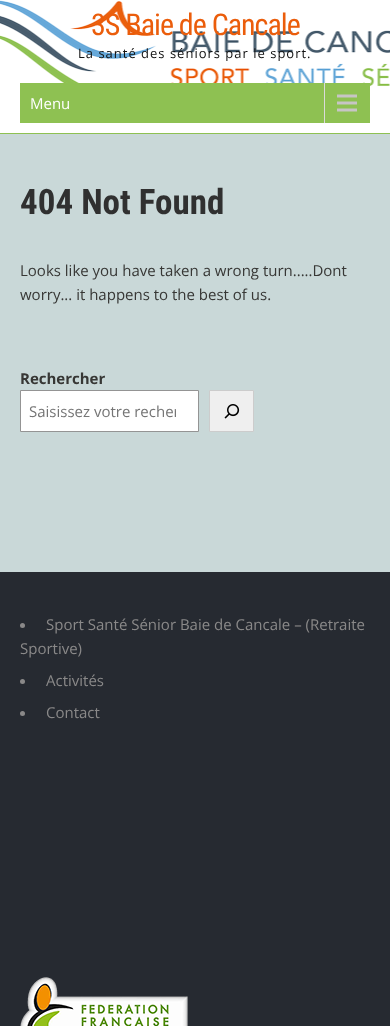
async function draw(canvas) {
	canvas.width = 390;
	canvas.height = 1026;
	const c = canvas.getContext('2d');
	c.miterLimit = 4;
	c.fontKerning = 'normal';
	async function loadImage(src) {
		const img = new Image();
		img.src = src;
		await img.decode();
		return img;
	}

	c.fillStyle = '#c9d8d8';
	c.fillRect(0, 0, 390, 1026);
	c.fillStyle = '#fff';
	c.fillRect(0, 0, 390, 133);
	c.drawImage(await loadImage('img1.png'), 0, 0, 390, 87);
	c.fillStyle = '#8ec152';
	c.fillRect(0, 133, 390, 1);
	c.letterSpacing = '-1px';
	c.font = '30px Roboto Condensed';
	c.fillStyle = '#eb5d0b';
	c.fillText('3S Baie de Cancale', 91, 35);
	c.letterSpacing = '1px';
	c.font = '13px Open Sans';
	c.fillStyle = '#111';
	c.fillText('La santé des séniors par le sport.', 78, 58);
	c.fillStyle = '#8ec152';
	c.fillRect(20, 83, 350, 40);
	c.drawImage(await loadImage('img2.png'), 324, 83, 33, 40);
	c.letterSpacing = '0px';
	c.font = '15px Open Sans';
	c.fillStyle = '#fff';
	c.fillText('Menu', 30, 109);
	c.font = 'bold 35px Roboto Condensed';
	c.fillStyle = '#303030';
	c.fillText('404 Not Found', 20, 214);
	c.font = '15px Open Sans';
	c.fillStyle = '#373735';
	c.fillText('Looks like you have taken a wrong turn.....Dont', 20, 276);
	c.fillText('worry... it happens to the best of us.', 20, 300);
	c.font = 'bold 15px Open Sans';
	c.fillText('Rechercher', 20, 384);
	c.fillStyle = '#fff';
	c.beginPath();
	c.rect(20.5, 390.5, 178, 41);
	c.fill();
	c.strokeStyle = '#949494';
	c.stroke();
	c.save();
	c.beginPath();
	c.rect(29, 401, 147, 20);
	c.clip();
	c.font = '15px Open Sans';
	c.fillStyle = '#757575';
	c.fillText('Saisissez votre recher', 29, 417);
	c.restore();
	c.fillStyle = '#efefef';
	c.beginPath();
	c.rect(209.5, 390.5, 44, 41);
	c.fill();
	c.strokeStyle = '#ccc';
	c.stroke();
	c.drawImage(await loadImage('img3.png'), 224, 404, 16, 15);
	c.fillStyle = '#262a31';
	c.fillRect(0, 572, 390, 454);
	c.fillStyle = '#8a8989';
	c.beginPath();
	c.arc(22.5, 625.5, 2.5, 0, 2 * Math.PI);
	c.fill();
	c.font = '15px Open Sans';
	c.fillText('Sport Santé Sénior Baie de Cancale – (Retraite', 46, 630);
	c.fillText('Sportive)', 20, 654);
	c.beginPath();
	c.arc(22.5, 681.5, 2.5, 0, 2 * Math.PI);
	c.fill();
	c.fillText('Activités', 46, 686);
	c.beginPath();
	c.arc(22.5, 713.5, 2.5, 0, 2 * Math.PI);
	c.fill();
	c.fillText('Contact', 46, 718);
	c.drawImage(await loadImage('img4.png'), 20, 977, 168, 49);
}

draw(document.querySelector('canvas'));
